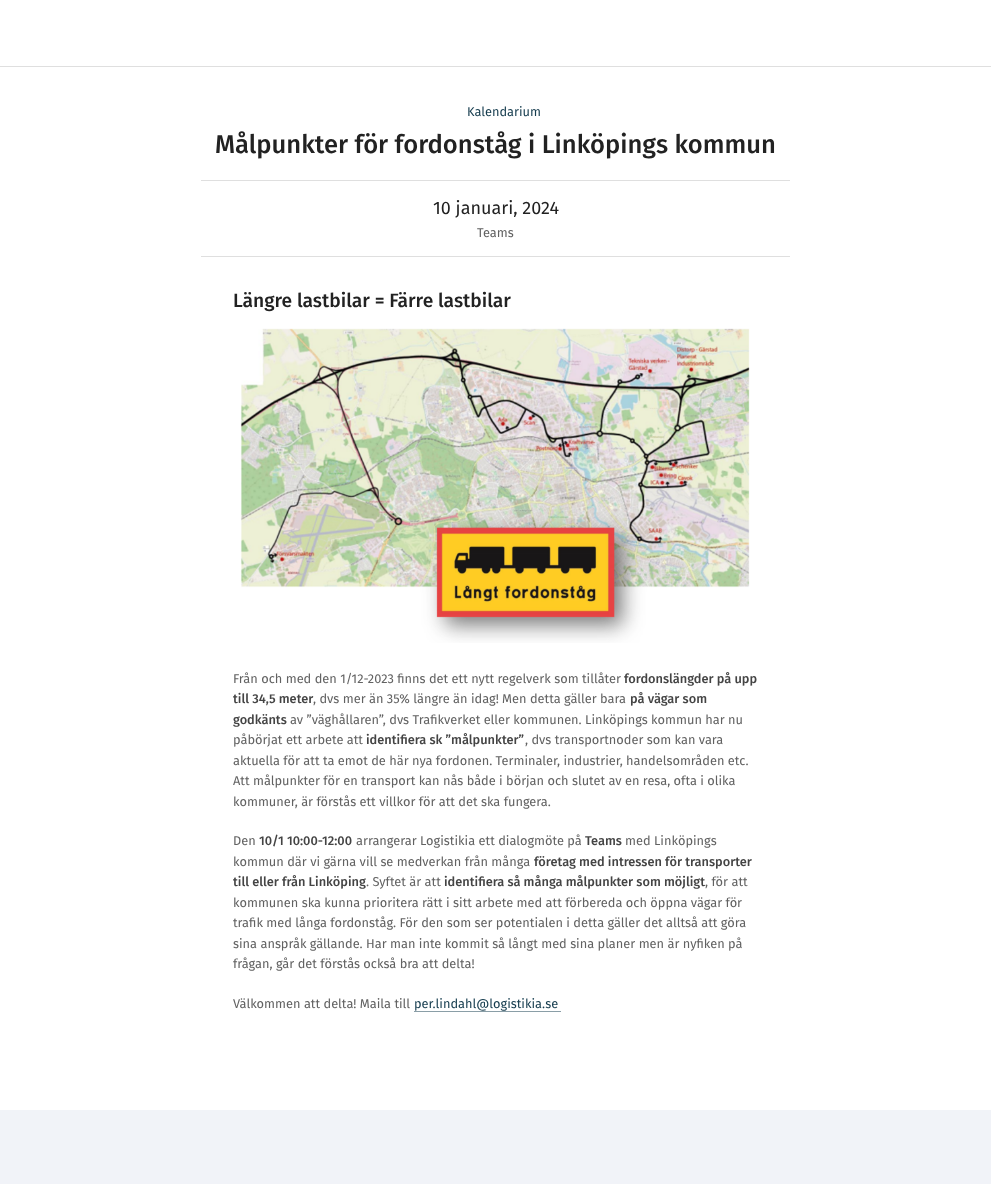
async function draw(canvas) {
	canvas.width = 991;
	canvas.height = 1184;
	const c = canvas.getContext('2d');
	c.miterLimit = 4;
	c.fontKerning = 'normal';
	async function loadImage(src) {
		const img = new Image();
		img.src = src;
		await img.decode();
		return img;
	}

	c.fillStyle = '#fff';
	c.fillRect(0, 0, 991, 1184);
	c.fillStyle = '#dfdfdf';
	c.fillRect(0, 66, 991, 1);
	c.font = '12.8px Fira Sans';
	c.fillStyle = '#153c4e';
	c.fillText('Kalendarium', 467, 116);
	c.font = '500 25.6px Fira Sans';
	c.fillStyle = '#222';
	c.fillText('Målpunkter för fordonståg i Linköpings kommun', 215, 153);
	c.fillStyle = '#dfdfdf';
	c.fillRect(201, 180, 589, 1);
	c.fillRect(201, 256, 589, 1);
	c.font = '18px Fira Sans';
	c.fillStyle = '#222';
	c.fillText('10 januari, 2024', 433, 214);
	c.font = '12.8px Fira Sans';
	c.fillStyle = '#626262';
	c.fillText('Teams', 477, 237);
	c.font = '500 19.25px Fira Sans';
	c.fillStyle = '#222';
	c.fillText('Längre lastbilar = Färre lastbilar', 233, 307);
	c.drawImage(await loadImage('img1.png'), 240, 328, 510, 315);
	c.font = '12.8px Fira Sans';
	c.fillStyle = '#626262';
	c.fillText('Från och med den 1/12-2023 finns det ett nytt regelverk som tillåter', 233, 683);
	c.font = '500 12.8px Fira Sans';
	c.fillStyle = '#444';
	c.fillText('fordonslängder på upp', 624, 683);
	c.fillText('till 34,5 meter', 233, 703);
	c.font = '12.8px Fira Sans';
	c.fillStyle = '#626262';
	c.fillText(', dvs mer än 35% längre än idag! Men detta gäller bara', 313, 703);
	c.font = '500 12.8px Fira Sans';
	c.fillStyle = '#444';
	c.fillText('på vägar som', 630, 703);
	c.fillText('godkänts', 233, 724);
	c.font = '12.8px Fira Sans';
	c.fillStyle = '#626262';
	c.fillText('av ”väghållaren”, dvs Trafikverket eller kommunen. Linköpings kommun har nu', 290, 724);
	c.fillText('påbörjat ett arbete att', 233, 744);
	c.font = '500 12.8px Fira Sans';
	c.fillStyle = '#444';
	c.fillText('identifiera sk ”målpunkter”', 366, 744);
	c.font = '12.8px Fira Sans';
	c.fillStyle = '#626262';
	for (const [text, x, y] of [
		[', dvs transportnoder som kan vara', 525, 744],
		['aktuella för att ta emot de här nya fordonen. Terminaler, industrier, handelsområden etc.', 233, 765],
		['Att målpunkter för en transport kan nås både i början och slutet av en resa, ofta i olika', 233, 785],
		['kommuner, är förstås ett villkor för att det ska fungera.', 233, 806],
		['Den', 233, 845],
	]) {
		c.fillText(text, x, y);
	}
	c.font = '500 12.8px Fira Sans';
	c.fillStyle = '#444';
	c.fillText('10/1 10:00-12:00', 259, 845);
	c.font = '12.8px Fira Sans';
	c.fillStyle = '#626262';
	c.fillText('arrangerar Logistikia ett dialogmöte på', 356, 845);
	c.font = '500 12.8px Fira Sans';
	c.fillStyle = '#444';
	c.fillText('Teams', 585, 845);
	c.font = '12.8px Fira Sans';
	c.fillStyle = '#626262';
	c.fillText('med Linköpings', 625, 845);
	c.fillText('kommun där vi gärna vill se medverkan från många', 233, 866);
	c.font = '500 12.8px Fira Sans';
	c.fillStyle = '#444';
	c.fillText('företag med intressen för transporter', 534, 866);
	c.fillText('till eller från Linköping', 233, 886);
	c.font = '12.8px Fira Sans';
	c.fillStyle = '#626262';
	c.fillText('. Syftet är att', 366, 886);
	c.font = '500 12.8px Fira Sans';
	c.fillStyle = '#444';
	c.fillText('identifiera så många målpunkter som möjligt', 444, 886);
	c.font = '12.8px Fira Sans';
	c.fillStyle = '#626262';
	for (const [text, x, y] of [
		[', för att', 705, 886],
		['kommunen ska kunna prioritera rätt i sitt arbete med att förbereda och öppna vägar för', 233, 907],
		['trafik med långa fordonståg. För den som ser potentialen i detta gäller det alltså att göra', 233, 927],
		['sina anspråk gällande. Har man inte kommit så långt med sina planer men är nyfiken på', 233, 948],
		['frågan, går det förstås också bra att delta!', 233, 968],
		['Välkommen att delta! Maila till', 233, 1008],
	]) {
		c.fillText(text, x, y);
	}
	c.fillStyle = '#153c4e';
	c.fillText('per.lindahl@logistikia.se', 414, 1008);
	c.fillStyle = '#8a9ea7';
	c.fillRect(414, 1011, 147, 1);
	c.fillStyle = '#f1f3f8';
	c.fillRect(0, 1110, 991, 74);
}

draw(document.querySelector('canvas'));
